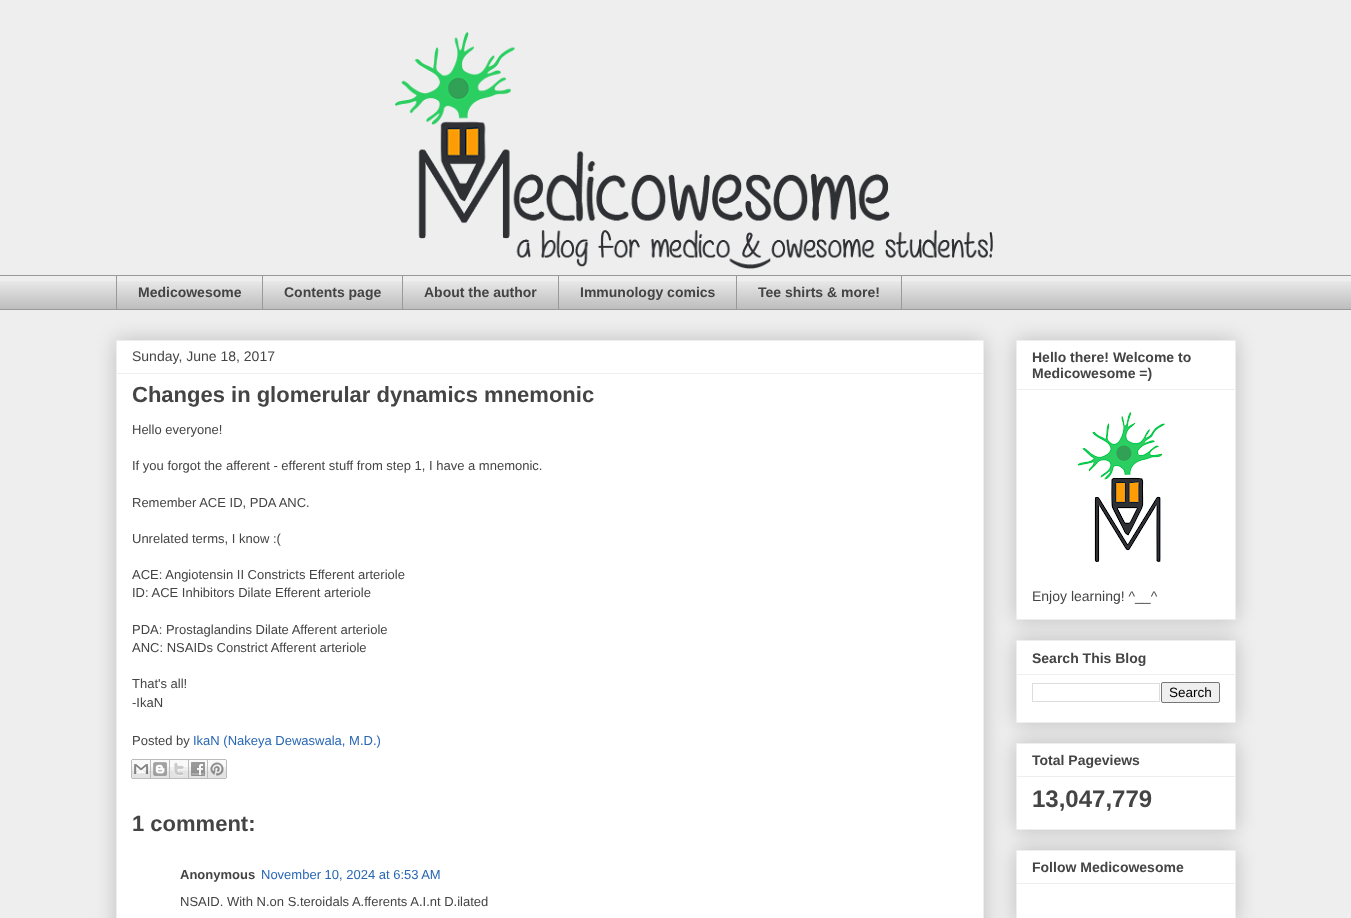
async function draw(canvas) {
	canvas.width = 1351;
	canvas.height = 918;
	const c = canvas.getContext('2d');
	c.miterLimit = 4;
	c.fontKerning = 'normal';
	async function loadImage(src) {
		const img = new Image();
		img.src = src;
		await img.decode();
		return img;
	}

	c.fillStyle = '#eee';
	c.fillRect(0, 0, 1351, 918);
	c.drawImage(await loadImage('img1.png'), 395, 32, 598, 238);
	c.drawImage(await loadImage('img2.png'), 0, 281, 1351, 28);
	c.fillStyle = '#999';
	c.fillRect(0, 275, 1351, 1);
	c.fillRect(116, 275, 1, 35);
	c.font = 'bold 14px Liberation Sans';
	c.fillStyle = '#444';
	c.fillText('Medicowesome', 138, 297);
	c.fillStyle = '#999';
	c.fillRect(262, 275, 1, 35);
	c.fillStyle = '#444';
	c.fillText('Contents page', 284, 297);
	c.fillStyle = '#999';
	c.fillRect(402, 275, 1, 35);
	c.fillStyle = '#444';
	c.fillText('About the author', 424, 297);
	c.fillStyle = '#999';
	c.fillRect(558, 275, 1, 35);
	c.fillStyle = '#444';
	c.fillText('Immunology comics', 580, 297);
	c.strokeStyle = '#999';
	c.strokeRect(736.5, 275.5, 165, 34);
	c.fillText('Tee shirts & more!', 758, 297);
	c.fillStyle = '#999';
	c.fillRect(0, 309, 1351, 1);
	c.fillStyle = '#00000033';
	c.filter = 'blur(10px)';
	c.beginPath();
	c.rect(116, 340, 868, 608);
	c.fill();
	c.filter = 'none';
	c.fillStyle = '#fff';
	c.beginPath();
	c.rect(116.5, 340.5, 867, 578);
	c.fill();
	c.strokeStyle = '#eee';
	c.stroke();
	c.font = '14px Liberation Sans';
	c.fillStyle = '#444';
	c.fillText('Sunday, June 18, 2017', 132, 361);
	c.fillStyle = '#eee';
	c.fillRect(117, 373, 866, 1);
	c.font = 'bold 22px Liberation Sans';
	c.fillStyle = '#444';
	c.fillText('Changes in glomerular dynamics mnemonic', 132, 402);
	c.font = '13px Liberation Sans';
	for (const [text, x, y] of [
		['Hello everyone!', 132, 434],
		['If you forgot the afferent - efferent stuff from step 1, I have a mnemonic.', 132, 470],
		['Remember ACE ID, PDA ANC.', 132, 507],
		['Unrelated terms, I know :(', 132, 543],
		['ACE: Angiotensin II Constricts Efferent arteriole', 132, 579],
		['ID: ACE Inhibitors Dilate Efferent arteriole', 132, 597],
		['PDA: Prostaglandins Dilate Afferent arteriole', 132, 634],
		['ANC: NSAIDs Constrict Afferent arteriole', 132, 652],
		['That\'s all!', 132, 688],
		['-IkaN', 132, 707],
		['Posted by', 132, 745],
	]) {
		c.fillText(text, x, y);
	}
	c.fillStyle = '#2967b5';
	c.fillText('IkaN (Nakeya Dewaswala, M.D.)', 193, 745);
	c.drawImage(await loadImage('img3.png'), 131, 759, 20, 20);
	c.drawImage(await loadImage('img4.png'), 151, 759, 19, 20);
	c.drawImage(await loadImage('img5.png'), 170, 759, 19, 20);
	c.drawImage(await loadImage('img6.png'), 189, 759, 19, 20);
	c.drawImage(await loadImage('img7.png'), 208, 759, 19, 20);
	c.font = 'bold 22px Liberation Sans';
	c.fillStyle = '#444';
	c.fillText('1 comment:', 132, 831);
	c.font = 'bold 13px Liberation Sans';
	c.fillText('Anonymous', 180, 879);
	c.font = '13px Liberation Sans';
	c.fillStyle = '#2967b5';
	c.fillText('November 10, 2024 at 6:53 AM', 261, 879);
	c.fillStyle = '#444';
	c.fillText('NSAID. With N.on S.teroidals A.fferents A.I.nt D.ilated', 180, 906);
	c.fillStyle = '#00000033';
	c.filter = 'blur(10px)';
	c.beginPath();
	c.rect(1016, 340, 220, 280);
	c.fill();
	c.filter = 'none';
	c.fillStyle = '#fff';
	c.beginPath();
	c.rect(1016.5, 340.5, 219, 279);
	c.fill();
	c.stroke();
	c.font = 'bold 14px Liberation Sans';
	c.fillStyle = '#444';
	c.fillText('Hello there! Welcome to', 1032, 362);
	c.fillText('Medicowesome =)', 1032, 378);
	c.fillStyle = '#eee';
	c.fillRect(1017, 389, 218, 1);
	c.drawImage(await loadImage('img8.png'), 1077, 412, 88, 150);
	c.font = '14px Liberation Sans';
	c.fillStyle = '#444';
	c.fillText('Enjoy learning! ^__^', 1032, 601);
	c.fillStyle = '#00000033';
	c.filter = 'blur(10px)';
	c.beginPath();
	c.rect(1016, 640, 220, 83);
	c.fill();
	c.filter = 'none';
	c.fillStyle = '#fff';
	c.beginPath();
	c.rect(1016.5, 640.5, 219, 82);
	c.fill();
	c.stroke();
	c.font = 'bold 14px Liberation Sans';
	c.fillStyle = '#444';
	c.fillText('Search This Blog', 1032, 663);
	c.fillStyle = '#eee';
	c.fillRect(1017, 674, 218, 1);
	c.strokeStyle = '#ddd';
	c.strokeRect(1032.5, 683.5, 127, 18);
	c.fillStyle = '#efefef';
	c.beginPath();
	c.roundRect(1161.5, 682.5, 58, 20, 1.5);
	c.fill();
	c.strokeStyle = '#767676';
	c.stroke();
	c.font = '13.5px Liberation Sans';
	c.fillStyle = '#000';
	c.fillText('Search', 1169, 697);
	c.fillStyle = '#00000033';
	c.filter = 'blur(10px)';
	c.beginPath();
	c.rect(1016, 743, 220, 87);
	c.fill();
	c.filter = 'none';
	c.fillStyle = '#fff';
	c.beginPath();
	c.rect(1016.5, 743.5, 219, 86);
	c.fill();
	c.strokeStyle = '#eee';
	c.stroke();
	c.font = 'bold 14px Liberation Sans';
	c.fillStyle = '#444';
	c.fillText('Total Pageviews', 1032, 765);
	c.fillStyle = '#eee';
	c.fillRect(1017, 776, 218, 1);
	c.font = 'bold 24px Liberation Sans';
	c.fillStyle = '#444';
	c.fillText('13,047,779', 1032, 807);
	c.fillStyle = '#00000033';
	c.filter = 'blur(10px)';
	c.beginPath();
	c.rect(1016, 850, 220, 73);
	c.fill();
	c.filter = 'none';
	c.fillStyle = '#fff';
	c.beginPath();
	c.rect(1016.5, 850.5, 219, 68);
	c.fill();
	c.stroke();
	c.font = 'bold 14px Liberation Sans';
	c.fillStyle = '#444';
	c.fillText('Follow Medicowesome', 1032, 872);
	c.fillStyle = '#eee';
	c.fillRect(1017, 883, 218, 1);
}

draw(document.querySelector('canvas'));
